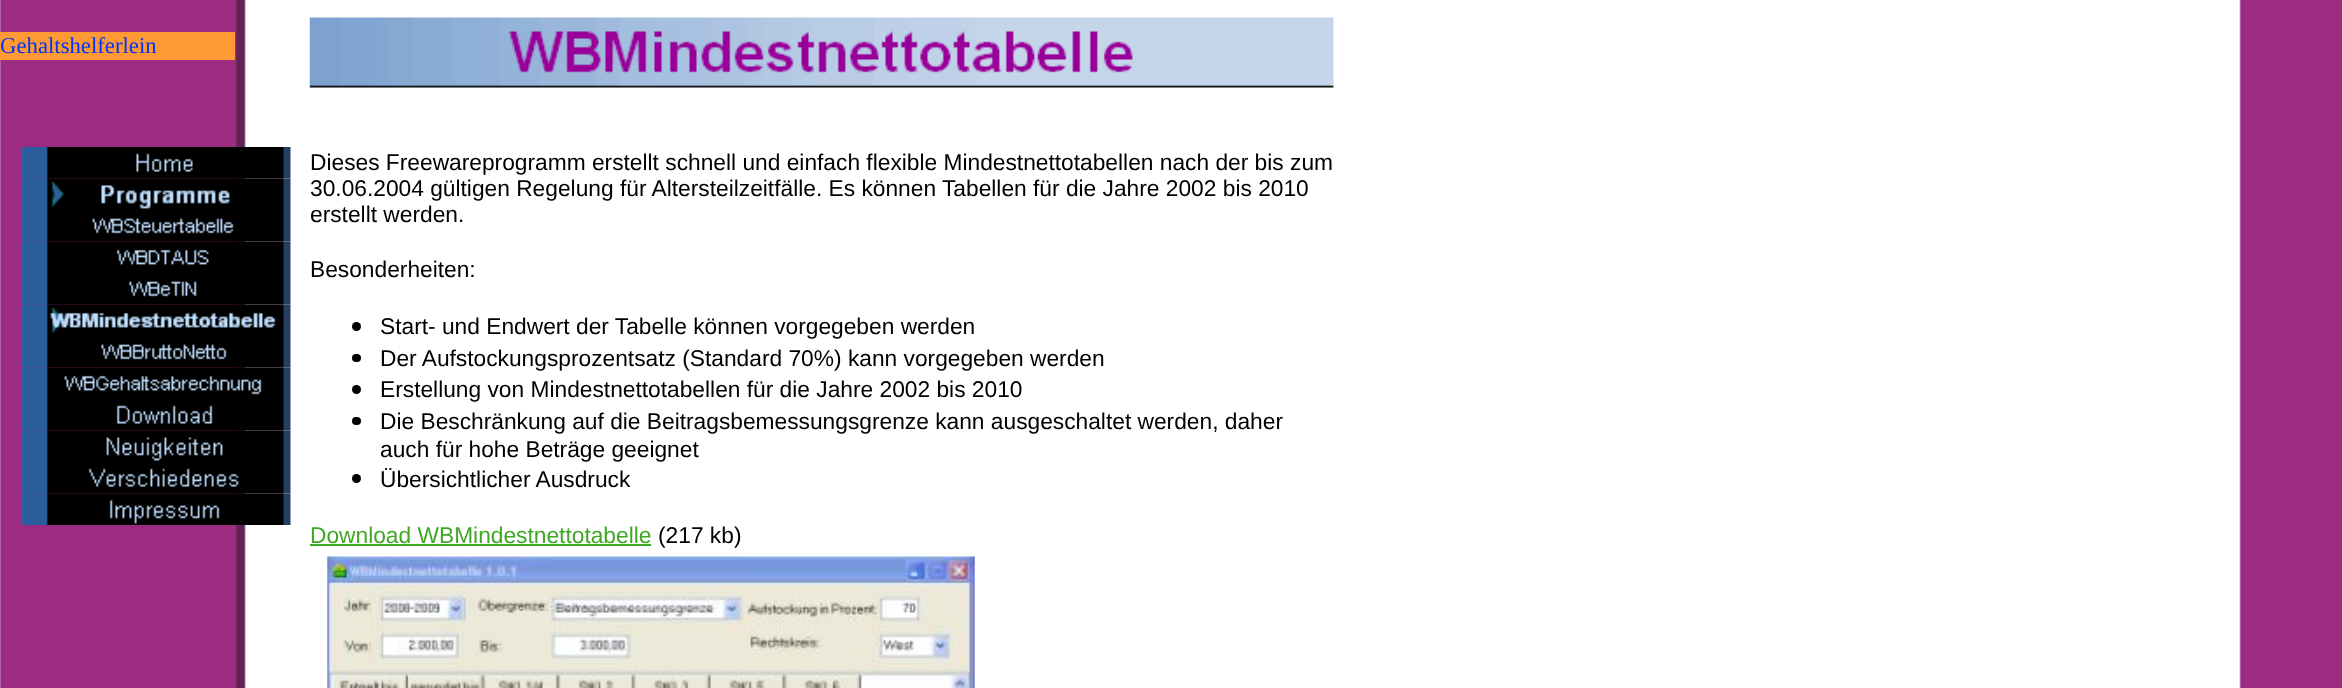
async function draw(canvas) {
	canvas.width = 2342;
	canvas.height = 688;
	const c = canvas.getContext('2d');
	c.miterLimit = 4;
	c.fontKerning = 'normal';
	async function loadImage(src) {
		const img = new Image();
		img.src = src;
		await img.decode();
		return img;
	}

	c.fillStyle = '#fff';
	c.fillRect(0, 0, 2342, 688);
	c.drawImage(await loadImage('img1.png'), 0, 0, 2342, 688);
	c.fillStyle = '#f93';
	c.fillRect(0, 32, 235, 28);
	c.font = '22.75px Liberation Serif';
	c.fillStyle = '#03f';
	c.fillText('Gehaltshelferlein', 0, 53);
	c.drawImage(await loadImage('img2.png'), 21, 147, 270, 32);
	c.drawImage(await loadImage('img3.png'), 21, 178, 270, 32);
	c.drawImage(await loadImage('img4.png'), 21, 210, 270, 32);
	c.drawImage(await loadImage('img5.png'), 21, 241, 270, 32);
	c.drawImage(await loadImage('img6.png'), 21, 273, 270, 32);
	c.drawImage(await loadImage('img7.png'), 21, 304, 270, 32);
	c.drawImage(await loadImage('img8.png'), 21, 336, 270, 32);
	c.drawImage(await loadImage('img9.png'), 21, 367, 270, 32);
	c.drawImage(await loadImage('img10.png'), 21, 399, 270, 32);
	c.drawImage(await loadImage('img11.png'), 21, 430, 270, 32);
	c.drawImage(await loadImage('img12.png'), 21, 462, 270, 32);
	c.drawImage(await loadImage('img13.png'), 21, 493, 270, 32);
	c.drawImage(await loadImage('img14.png'), 309, 17, 1025, 71);
	c.font = '22.75px Liberation Sans';
	c.fillStyle = '#000';
	for (const [text, x, y] of [
		['Dieses Freewareprogramm erstellt schnell und einfach flexible Mindestnettotabellen nach der bis zum', 310, 170],
		['30.06.2004 gültigen Regelung für Altersteilzeitfälle. Es können Tabellen für die Jahre 2002 bis 2010', 310, 196],
		['erstellt werden.', 310, 222],
		['Besonderheiten:', 310, 277],
	]) {
		c.fillText(text, x, y);
	}
	c.beginPath();
	c.arc(356.5, 326.5, 4.5, 0, 2 * Math.PI);
	c.fill();
	c.fillText('Start- und Endwert der Tabelle können vorgegeben werden', 380, 334);
	c.beginPath();
	c.roundRect(352, 354, 9, 8, 4);
	c.fill();
	c.fillText('Der Aufstockungsprozentsatz (Standard 70%) kann vorgegeben werden', 380, 366);
	c.beginPath();
	c.arc(356.5, 389.5, 4.5, 0, 2 * Math.PI);
	c.fill();
	c.fillText('Erstellung von Mindestnettotabellen für die Jahre 2002 bis 2010', 380, 397);
	c.beginPath();
	c.roundRect(352, 417, 9, 8, 4);
	c.fill();
	c.fillText('Die Beschränkung auf die Beitragsbemessungsgrenze kann ausgeschaltet werden, daher', 380, 429);
	c.fillText('auch für hohe Beträge geeignet', 380, 457);
	c.beginPath();
	c.arc(356.5, 478.5, 4.5, 0, 2 * Math.PI);
	c.fill();
	c.fillText('Übersichtlicher Ausdruck', 380, 487);
	c.fillStyle = '#3fa824';
	c.fillText('Download WBMindestnettotabelle', 310, 543);
	c.fillRect(310, 544, 341, 2);
	c.fillStyle = '#000';
	c.fillText('(217 kb)', 658, 543);
	c.drawImage(await loadImage('img15.png'), 327, 556, 648, 132);
}

draw(document.querySelector('canvas'));
